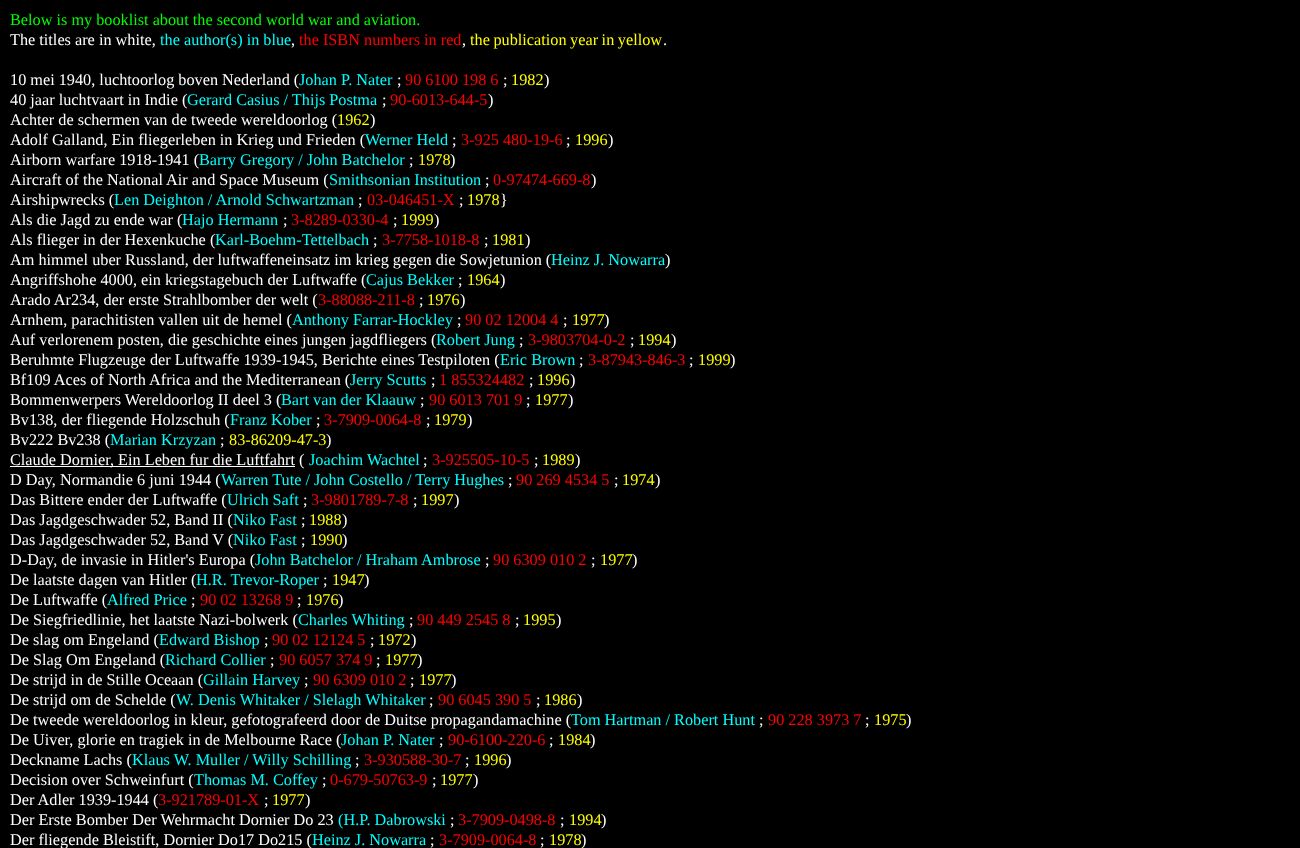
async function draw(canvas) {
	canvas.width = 1300;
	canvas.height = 848;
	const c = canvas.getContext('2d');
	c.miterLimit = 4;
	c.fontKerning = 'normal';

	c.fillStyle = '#000';
	c.fillRect(0, 0, 1300, 848);
	c.font = '16.25px Liberation Serif';
	c.fillStyle = '#0f0';
	c.fillText('Below is my booklist about the second world war and aviation.', 10, 25);
	c.fillStyle = '#fff';
	c.fillText('The titles are in white,', 10, 45);
	c.fillStyle = '#0ff';
	c.fillText('the author(s) in blue', 160, 45);
	c.fillStyle = '#fff';
	c.fillText(',', 291, 45);
	c.fillStyle = '#f00';
	c.fillText('the ISBN numbers in red', 299, 45);
	c.fillStyle = '#fff';
	c.fillText(',', 462, 45);
	c.wordSpacing = '-0.5px';
	c.fillStyle = '#ff0';
	c.fillText('the publication year in yellow', 470, 45);
	c.wordSpacing = '0px';
	c.fillStyle = '#fff';
	c.fillText('.', 663, 45);
	c.fillText('10 mei 1940, luchtoorlog boven Nederland (', 10, 85);
	c.fillStyle = '#0ff';
	c.fillText('Johan P. Nater', 299, 85);
	c.fillStyle = '#fff';
	c.fillText(';', 397, 85);
	c.fillStyle = '#f00';
	c.fillText('90 6100 198 6', 405, 85);
	c.fillStyle = '#fff';
	c.fillText(';', 503, 85);
	c.fillStyle = '#ff0';
	c.fillText('1982', 511, 85);
	c.fillStyle = '#fff';
	c.fillText(')', 544, 85);
	c.fillText('40 jaar luchtvaart in Indie (', 10, 105);
	c.fillStyle = '#0ff';
	c.fillText('Gerard Casius / Thijs Postma', 187, 105);
	c.fillStyle = '#fff';
	c.fillText(';', 382, 105);
	c.fillStyle = '#f00';
	c.fillText('90-6013-644-5', 390, 105);
	c.fillStyle = '#fff';
	c.fillText(')', 488, 105);
	c.fillText('Achter de schermen van de tweede wereldoorlog (', 10, 125);
	c.fillStyle = '#ff0';
	c.fillText('1962', 337, 125);
	c.fillStyle = '#fff';
	c.fillText(')', 370, 125);
	c.fillText('Adolf Galland, Ein fliegerleben in Krieg und Frieden (', 10, 145);
	c.fillStyle = '#0ff';
	c.fillText('Werner Held', 365, 145);
	c.fillStyle = '#fff';
	c.fillText(';', 452, 145);
	c.fillStyle = '#f00';
	c.fillText('3-925 480-19-6', 461, 145);
	c.fillStyle = '#fff';
	c.fillText(';', 566, 145);
	c.fillStyle = '#ff0';
	c.fillText('1996', 575, 145);
	c.fillStyle = '#fff';
	c.fillText(')', 608, 145);
	c.fillText('Airborn warfare 1918-1941 (', 10, 165);
	c.fillStyle = '#0ff';
	c.fillText('Barry Gregory / John Batchelor', 199, 165);
	c.fillStyle = '#fff';
	c.fillText(';', 409, 165);
	c.fillStyle = '#ff0';
	c.fillText('1978', 418, 165);
	c.fillStyle = '#fff';
	c.fillText(')', 450, 165);
	c.fillText('Aircraft of the National Air and Space Museum (', 10, 185);
	c.fillStyle = '#0ff';
	c.fillText('Smithsonian Institution', 329, 185);
	c.fillStyle = '#fff';
	c.fillText(';', 485, 185);
	c.fillStyle = '#f00';
	c.fillText('0-97474-669-8', 493, 185);
	c.fillStyle = '#fff';
	c.fillText(')', 591, 185);
	c.fillText('Airshipwrecks (', 10, 205);
	c.fillStyle = '#0ff';
	c.fillText('Len Deighton / Arnold Schwartzman', 114, 205);
	c.fillStyle = '#fff';
	c.fillText(';', 358, 205);
	c.fillStyle = '#f00';
	c.fillText('03-046451-X', 367, 205);
	c.fillStyle = '#fff';
	c.fillText(';', 459, 205);
	c.fillStyle = '#ff0';
	c.fillText('1978', 467, 205);
	c.fillStyle = '#fff';
	c.fillText('}', 500, 205);
	c.fillText('Als die Jagd zu ende war (', 10, 225);
	c.fillStyle = '#0ff';
	c.fillText('Hajo Hermann', 182, 225);
	c.fillStyle = '#fff';
	c.fillText(';', 283, 225);
	c.fillStyle = '#f00';
	c.fillText('3-8289-0330-4', 291, 225);
	c.fillStyle = '#fff';
	c.fillText(';', 393, 225);
	c.fillStyle = '#ff0';
	c.fillText('1999', 401, 225);
	c.fillStyle = '#fff';
	c.fillText(')', 434, 225);
	c.fillText('Als flieger in der Hexenkuche (', 10, 245);
	c.fillStyle = '#0ff';
	c.fillText('Karl-Boehm-Tettelbach', 215, 245);
	c.fillStyle = '#fff';
	c.fillText(';', 373, 245);
	c.fillStyle = '#f00';
	c.fillText('3-7758-1018-8', 382, 245);
	c.fillStyle = '#fff';
	c.fillText(';', 484, 245);
	c.fillStyle = '#ff0';
	c.fillText('1981', 492, 245);
	c.fillStyle = '#fff';
	c.fillText(')', 525, 245);
	c.fillText('Am himmel uber Russland, der luftwaffeneinsatz im krieg gegen die Sowjetunion (', 10, 265);
	c.fillStyle = '#0ff';
	c.fillText('Heinz J. Nowarra', 551, 265);
	c.fillStyle = '#fff';
	c.fillText(')', 665, 265);
	c.fillText('Angriffshohe 4000, ein kriegstagebuch der Luftwaffe (', 10, 285);
	c.fillStyle = '#0ff';
	c.fillText('Cajus Bekker', 366, 285);
	c.fillStyle = '#fff';
	c.fillText(';', 458, 285);
	c.fillStyle = '#ff0';
	c.fillText('1964', 467, 285);
	c.fillStyle = '#fff';
	c.fillText(')', 500, 285);
	c.fillText('Arado Ar234, der erste Strahlbomber der welt (', 10, 305);
	c.fillStyle = '#f00';
	c.fillText('3-88088-211-8', 318, 305);
	c.fillStyle = '#fff';
	c.fillText(';', 419, 305);
	c.fillStyle = '#ff0';
	c.fillText('1976', 427, 305);
	c.fillStyle = '#fff';
	c.fillText(')', 460, 305);
	c.fillText('Arnhem, parachitisten vallen uit de hemel (', 10, 325);
	c.fillStyle = '#0ff';
	c.fillText('Anthony Farrar-Hockley', 292, 325);
	c.fillStyle = '#fff';
	c.fillText(';', 457, 325);
	c.fillStyle = '#f00';
	c.fillText('90 02 12004 4', 465, 325);
	c.fillStyle = '#fff';
	c.fillText(';', 563, 325);
	c.fillStyle = '#ff0';
	c.fillText('1977', 572, 325);
	c.fillStyle = '#fff';
	c.fillText(')', 604, 325);
	c.fillText('Auf verlorenem posten, die geschichte eines jungen jagdfliegers (', 10, 345);
	c.fillStyle = '#0ff';
	c.fillText('Robert Jung', 436, 345);
	c.fillStyle = '#fff';
	c.fillText(';', 519, 345);
	c.fillStyle = '#f00';
	c.fillText('3-9803704-0-2', 528, 345);
	c.fillStyle = '#fff';
	c.fillText(';', 630, 345);
	c.fillStyle = '#ff0';
	c.fillText('1994', 638, 345);
	c.fillStyle = '#fff';
	c.fillText(')', 671, 345);
	c.fillText('Beruhmte Flugzeuge der Luftwaffe 1939-1945, Berichte eines Testpiloten (', 10, 365);
	c.fillStyle = '#0ff';
	c.fillText('Eric Brown', 500, 365);
	c.fillStyle = '#fff';
	c.fillText(';', 579, 365);
	c.fillStyle = '#f00';
	c.fillText('3-87943-846-3', 588, 365);
	c.fillStyle = '#fff';
	c.fillText(';', 689, 365);
	c.fillStyle = '#ff0';
	c.fillText('1999', 698, 365);
	c.fillStyle = '#fff';
	c.fillText(')', 730, 365);
	c.fillText('Bf109 Aces of North Africa and the Mediterranean (', 10, 385);
	c.fillStyle = '#0ff';
	c.fillText('Jerry Scutts', 350, 385);
	c.fillStyle = '#fff';
	c.fillText(';', 431, 385);
	c.fillStyle = '#f00';
	c.fillText('1 855324482', 439, 385);
	c.fillStyle = '#fff';
	c.fillText(';', 529, 385);
	c.fillStyle = '#ff0';
	c.fillText('1996', 537, 385);
	c.fillStyle = '#fff';
	c.fillText(')', 570, 385);
	c.fillText('Bommenwerpers Wereldoorlog II deel 3 (', 10, 405);
	c.fillStyle = '#0ff';
	c.fillText('Bart van der Klaauw', 281, 405);
	c.fillStyle = '#fff';
	c.fillText(';', 420, 405);
	c.fillStyle = '#f00';
	c.fillText('90 6013 701 9', 429, 405);
	c.fillStyle = '#fff';
	c.fillText(';', 526, 405);
	c.fillStyle = '#ff0';
	c.fillText('1977', 535, 405);
	c.fillStyle = '#fff';
	c.fillText(')', 568, 405);
	c.fillText('Bv138, der fliegende Holzschuh (', 10, 425);
	c.fillStyle = '#0ff';
	c.fillText('Franz Kober', 230, 425);
	c.fillStyle = '#fff';
	c.fillText(';', 316, 425);
	c.fillStyle = '#f00';
	c.fillText('3-7909-0064-8', 324, 425);
	c.fillStyle = '#fff';
	c.fillText(';', 426, 425);
	c.fillStyle = '#ff0';
	c.fillText('1979', 434, 425);
	c.fillStyle = '#fff';
	c.fillText(')', 467, 425);
	c.fillText('Bv222 Bv238 (', 10, 445);
	c.fillStyle = '#0ff';
	c.fillText('Marian Krzyzan', 110, 445);
	c.fillStyle = '#fff';
	c.fillText(';', 220, 445);
	c.fillStyle = '#ff0';
	c.fillText('83-86209-47-3', 229, 445);
	c.fillStyle = '#fff';
	c.fillText(')', 326, 445);
	c.fillRect(10, 466, 285, 1);
	c.fillText('Claude Dornier, Ein Leben fur die Luftfahrt (', 10, 465);
	c.fillStyle = '#0ff';
	c.fillText('Joachim Wachtel', 309, 465);
	c.fillStyle = '#fff';
	c.fillText(';', 423, 465);
	c.fillStyle = '#f00';
	c.fillText('3-925505-10-5', 432, 465);
	c.fillStyle = '#fff';
	c.fillText(';', 534, 465);
	c.fillStyle = '#ff0';
	c.fillText('1989', 542, 465);
	c.fillStyle = '#fff';
	c.fillText(')', 575, 465);
	c.fillText('D Day, Normandie 6 juni 1944 (', 10, 485);
	c.fillStyle = '#0ff';
	c.fillText('Warren Tute / John Costello / Terry Hughes', 221, 485);
	c.fillStyle = '#fff';
	c.fillText(';', 508, 485);
	c.fillStyle = '#f00';
	c.fillText('90 269 4534 5', 516, 485);
	c.fillStyle = '#fff';
	c.fillText(';', 614, 485);
	c.fillStyle = '#ff0';
	c.fillText('1974', 622, 485);
	c.fillStyle = '#fff';
	c.fillText(')', 655, 485);
	c.fillText('Das Bittere ender der Luftwaffe (', 10, 505);
	c.fillStyle = '#0ff';
	c.fillText('Ulrich Saft', 227, 505);
	c.fillStyle = '#fff';
	c.fillText(';', 303, 505);
	c.fillStyle = '#f00';
	c.fillText('3-9801789-7-8', 311, 505);
	c.fillStyle = '#fff';
	c.fillText(';', 413, 505);
	c.fillStyle = '#ff0';
	c.fillText('1997', 421, 505);
	c.fillStyle = '#fff';
	c.fillText(')', 454, 505);
	c.fillText('Das Jagdgeschwader 52, Band II (', 10, 525);
	c.fillStyle = '#0ff';
	c.fillText('Niko Fast', 233, 525);
	c.fillStyle = '#fff';
	c.fillText(';', 301, 525);
	c.fillStyle = '#ff0';
	c.fillText('1988', 309, 525);
	c.fillStyle = '#fff';
	c.fillText(')', 342, 525);
	c.fillText('Das Jagdgeschwader 52, Band V (', 10, 545);
	c.fillStyle = '#0ff';
	c.fillText('Niko Fast', 233, 545);
	c.fillStyle = '#fff';
	c.fillText(';', 301, 545);
	c.fillStyle = '#ff0';
	c.fillText('1990', 310, 545);
	c.fillStyle = '#fff';
	c.fillText(')', 342, 545);
	c.fillText('D-Day, de invasie in Hitler\'s Europa (', 10, 565);
	c.fillStyle = '#0ff';
	c.fillText('John Batchelor / Hraham Ambrose', 255, 565);
	c.fillStyle = '#fff';
	c.fillText(';', 485, 565);
	c.fillStyle = '#f00';
	c.fillText('90 6309 010 2', 493, 565);
	c.fillStyle = '#fff';
	c.fillText(';', 591, 565);
	c.fillStyle = '#ff0';
	c.fillText('1977', 600, 565);
	c.fillStyle = '#fff';
	c.fillText(')', 632, 565);
	c.fillText('De laatste dagen van Hitler (', 10, 585);
	c.fillStyle = '#0ff';
	c.fillText('H.R. Trevor-Roper', 196, 585);
	c.fillStyle = '#fff';
	c.fillText(';', 323, 585);
	c.fillStyle = '#ff0';
	c.fillText('1947', 332, 585);
	c.fillStyle = '#fff';
	c.fillText(')', 364, 585);
	c.fillText('De Luftwaffe (', 10, 605);
	c.fillStyle = '#0ff';
	c.fillText('Alfred Price', 107, 605);
	c.fillStyle = '#fff';
	c.fillText(';', 191, 605);
	c.fillStyle = '#f00';
	c.fillText('90 02 13268 9', 200, 605);
	c.fillStyle = '#fff';
	c.fillText(';', 297, 605);
	c.fillStyle = '#ff0';
	c.fillText('1976', 306, 605);
	c.fillStyle = '#fff';
	c.fillText(')', 338, 605);
	c.fillText('De Siegfriedlinie, het laatste Nazi-bolwerk (', 10, 625);
	c.fillStyle = '#0ff';
	c.fillText('Charles Whiting', 298, 625);
	c.fillStyle = '#fff';
	c.fillText(';', 409, 625);
	c.fillStyle = '#f00';
	c.fillText('90 449 2545 8', 417, 625);
	c.fillStyle = '#fff';
	c.fillText(';', 515, 625);
	c.fillStyle = '#ff0';
	c.fillText('1995', 523, 625);
	c.fillStyle = '#fff';
	c.fillText(')', 556, 625);
	c.fillText('De slag om Engeland (', 10, 645);
	c.fillStyle = '#0ff';
	c.fillText('Edward Bishop', 159, 645);
	c.fillStyle = '#fff';
	c.fillText(';', 264, 645);
	c.fillStyle = '#f00';
	c.fillText('90 02 12124 5', 272, 645);
	c.fillStyle = '#fff';
	c.fillText(';', 370, 645);
	c.fillStyle = '#ff0';
	c.fillText('1972', 378, 645);
	c.fillStyle = '#fff';
	c.fillText(')', 411, 645);
	c.fillText('De Slag Om Engeland (', 10, 665);
	c.fillStyle = '#0ff';
	c.fillText('Richard Collier', 165, 665);
	c.fillStyle = '#fff';
	c.fillText(';', 270, 665);
	c.fillStyle = '#f00';
	c.fillText('90 6057 374 9', 279, 665);
	c.fillStyle = '#fff';
	c.fillText(';', 376, 665);
	c.fillStyle = '#ff0';
	c.fillText('1977', 385, 665);
	c.fillStyle = '#fff';
	c.fillText(')', 417, 665);
	c.fillText('De strijd in de Stille Oceaan (', 10, 685);
	c.fillStyle = '#0ff';
	c.fillText('Gillain Harvey', 203, 685);
	c.fillStyle = '#fff';
	c.fillText(';', 304, 685);
	c.fillStyle = '#f00';
	c.fillText('90 6309 010 2', 313, 685);
	c.fillStyle = '#fff';
	c.fillText(';', 410, 685);
	c.fillStyle = '#ff0';
	c.fillText('1977', 419, 685);
	c.fillStyle = '#fff';
	c.fillText(')', 451, 685);
	c.fillText('De strijd om de Schelde (', 10, 705);
	c.fillStyle = '#0ff';
	c.fillText('W. Denis Whitaker / Slelagh Whitaker', 176, 705);
	c.fillStyle = '#fff';
	c.fillText(';', 429, 705);
	c.fillStyle = '#f00';
	c.fillText('90 6045 390 5', 438, 705);
	c.fillStyle = '#fff';
	c.fillText(';', 536, 705);
	c.fillStyle = '#ff0';
	c.fillText('1986', 544, 705);
	c.fillStyle = '#fff';
	c.fillText(')', 577, 705);
	c.fillText('De tweede wereldoorlog in kleur, gefotografeerd door de Duitse propagandamachine (', 10, 725);
	c.fillStyle = '#0ff';
	c.fillText('Tom Hartman / Robert Hunt', 571, 725);
	c.fillStyle = '#fff';
	c.fillText(';', 759, 725);
	c.fillStyle = '#f00';
	c.fillText('90 228 3973 7', 768, 725);
	c.fillStyle = '#fff';
	c.fillText(';', 865, 725);
	c.fillStyle = '#ff0';
	c.fillText('1975', 874, 725);
	c.fillStyle = '#fff';
	c.fillText(')', 906, 725);
	c.fillText('De Uiver, glorie en tragiek in de Melbourne Race (', 10, 745);
	c.fillStyle = '#0ff';
	c.fillText('Johan P. Nater', 341, 745);
	c.fillStyle = '#fff';
	c.fillText(';', 439, 745);
	c.fillStyle = '#f00';
	c.fillText('90-6100-220-6', 448, 745);
	c.fillStyle = '#fff';
	c.fillText(';', 549, 745);
	c.fillStyle = '#ff0';
	c.fillText('1984', 558, 745);
	c.fillStyle = '#fff';
	c.fillText(')', 590, 745);
	c.fillText('Deckname Lachs (', 10, 765);
	c.fillStyle = '#0ff';
	c.fillText('Klaus W. Muller / Willy Schilling', 132, 765);
	c.fillStyle = '#fff';
	c.fillText(';', 355, 765);
	c.fillStyle = '#f00';
	c.fillText('3-930588-30-7', 364, 765);
	c.fillStyle = '#fff';
	c.fillText(';', 465, 765);
	c.fillStyle = '#ff0';
	c.fillText('1996', 474, 765);
	c.fillStyle = '#fff';
	c.fillText(')', 506, 765);
	c.fillText('Decision over Schweinfurt (', 10, 785);
	c.fillStyle = '#0ff';
	c.fillText('Thomas M. Coffey', 194, 785);
	c.fillStyle = '#fff';
	c.fillText(';', 322, 785);
	c.fillStyle = '#f00';
	c.fillText('0-679-50763-9', 330, 785);
	c.fillStyle = '#fff';
	c.fillText(';', 432, 785);
	c.fillStyle = '#ff0';
	c.fillText('1977', 440, 785);
	c.fillStyle = '#fff';
	c.fillText(')', 473, 785);
	c.fillText('Der Adler 1939-1944 (', 10, 805);
	c.fillStyle = '#f00';
	c.fillText('3-921789-01-X', 158, 805);
	c.fillStyle = '#fff';
	c.fillText(';', 264, 805);
	c.fillStyle = '#ff0';
	c.fillText('1977', 272, 805);
	c.fillStyle = '#fff';
	c.fillText(')', 305, 805);
	c.fillText('Der Erste Bomber Der Wehrmacht Dornier Do 23', 10, 825);
	c.fillStyle = '#0ff';
	c.fillText('(H.P. Dabrowski', 338, 825);
	c.fillStyle = '#fff';
	c.fillText(';', 450, 825);
	c.fillStyle = '#f00';
	c.fillText('3-7909-0498-8', 458, 825);
	c.fillStyle = '#fff';
	c.fillText(';', 560, 825);
	c.fillStyle = '#ff0';
	c.fillText('1994', 569, 825);
	c.fillStyle = '#fff';
	c.fillText(')', 601, 825);
	c.fillText('Der fliegende Bleistift, Dornier Do17 Do215 (', 10, 845);
	c.fillStyle = '#0ff';
	c.fillText('Heinz J. Nowarra', 312, 845);
	c.fillStyle = '#fff';
	c.fillText(';', 430, 845);
	c.fillStyle = '#f00';
	c.fillText('3-7909-0064-8', 439, 845);
	c.fillStyle = '#fff';
	c.fillText(';', 540, 845);
	c.fillStyle = '#ff0';
	c.fillText('1978', 549, 845);
	c.fillStyle = '#fff';
	c.fillText(')', 581, 845);
}

draw(document.querySelector('canvas'));
